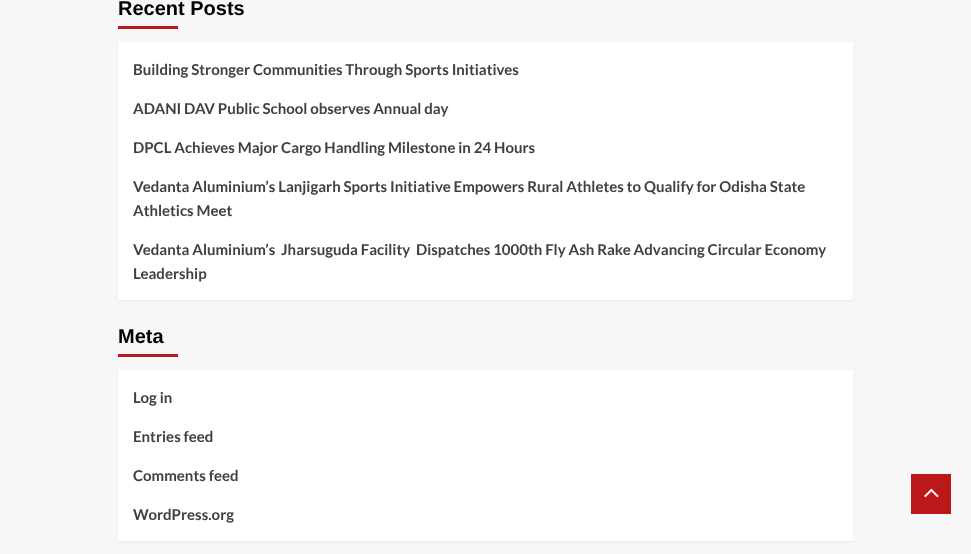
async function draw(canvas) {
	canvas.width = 971;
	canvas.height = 554;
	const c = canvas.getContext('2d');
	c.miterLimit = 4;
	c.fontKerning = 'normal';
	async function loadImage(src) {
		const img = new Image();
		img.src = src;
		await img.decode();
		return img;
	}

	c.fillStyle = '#f7f7f7';
	c.fillRect(0, 0, 971, 554);
	c.font = 'bold 20px Liberation Sans';
	c.fillStyle = '#000';
	c.fillText('Recent Posts', 118, 15);
	c.fillStyle = '#bb1919';
	c.fillRect(118, 26, 60, 3);
	c.fillStyle = '#0000000d';
	c.filter = 'blur(1px)';
	c.beginPath();
	c.rect(118, 43, 735, 258);
	c.fill();
	c.filter = 'none';
	c.fillStyle = '#fff';
	c.fillRect(118, 42, 735, 258);
	c.font = 'bold 15px Lato';
	c.fillStyle = '#404040';
	for (const [text, x, y] of [
		['Building Stronger Communities Through Sports Initiatives', 133, 75],
		['ADANI DAV Public School observes Annual day', 133, 114],
		['DPCL Achieves Major Cargo Handling Milestone in 24 Hours', 133, 153],
		['Vedanta Aluminium’s Lanjigarh Sports Initiative Empowers Rural Athletes to Qualify for Odisha State', 133, 192],
		['Athletics Meet', 133, 216],
		['Vedanta Aluminium’s  Jharsuguda Facility  Dispatches 1000th Fly Ash Rake Advancing Circular Economy', 133, 255],
		['Leadership', 133, 279],
	]) {
		c.fillText(text, x, y);
	}
	c.font = 'bold 20px Liberation Sans';
	c.fillStyle = '#000';
	c.fillText('Meta', 118, 343);
	c.fillStyle = '#bb1919';
	c.fillRect(118, 354, 60, 3);
	c.fillStyle = '#0000000d';
	c.filter = 'blur(1px)';
	c.beginPath();
	c.rect(118, 371, 735, 171);
	c.fill();
	c.filter = 'none';
	c.fillStyle = '#fff';
	c.fillRect(118, 370, 735, 171);
	c.font = 'bold 15px Lato';
	c.fillStyle = '#404040';
	for (const [text, x, y] of [
		['Log in', 133, 403],
		['Entries feed', 133, 442],
		['Comments feed', 133, 481],
		['WordPress.org', 133, 520],
	]) {
		c.fillText(text, x, y);
	}
	c.fillStyle = '#bb1919';
	c.fillRect(911, 474, 40, 40);
	c.drawImage(await loadImage('img1.png'), 924, 488, 15, 10);
}

draw(document.querySelector('canvas'));
